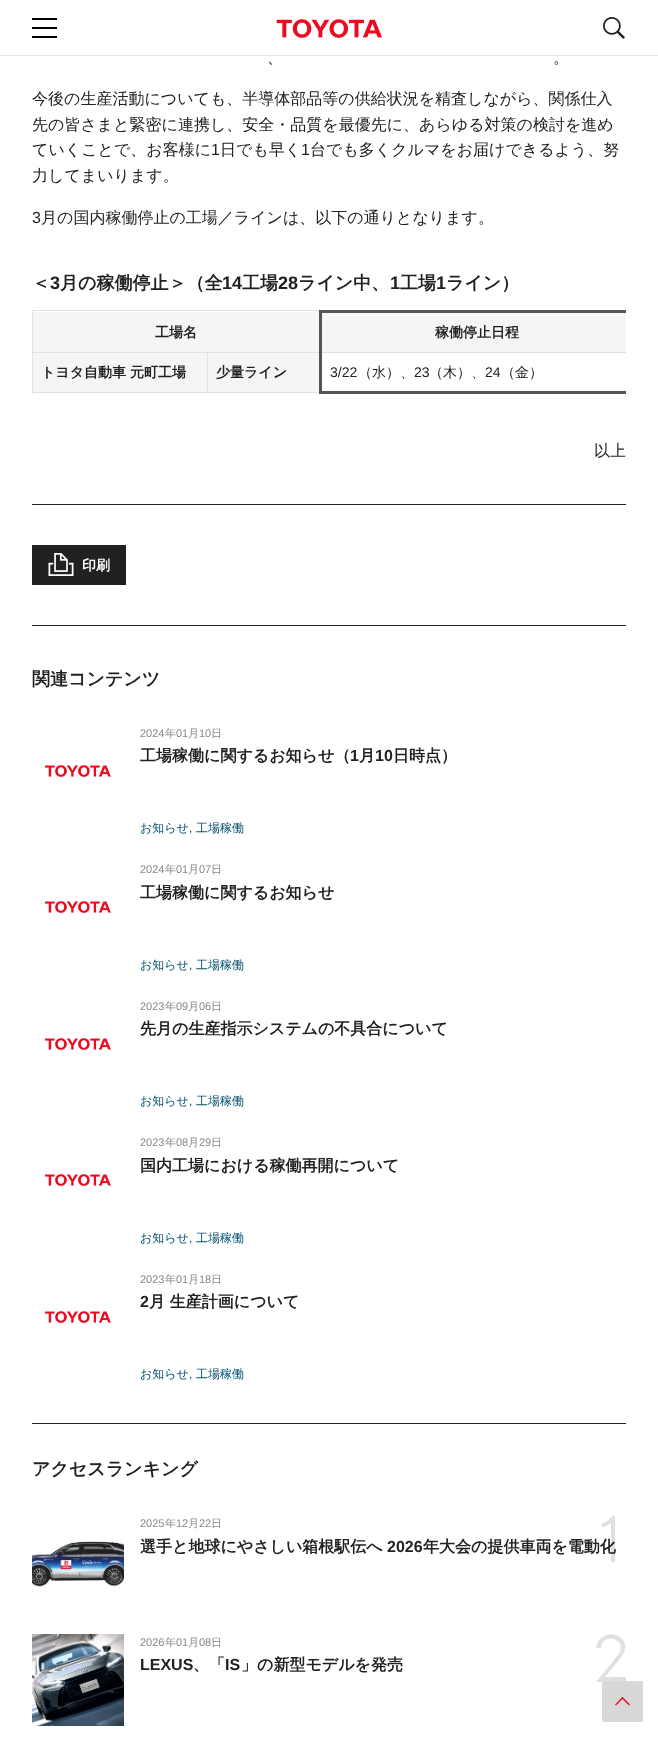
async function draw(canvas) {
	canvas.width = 658;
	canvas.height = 1737;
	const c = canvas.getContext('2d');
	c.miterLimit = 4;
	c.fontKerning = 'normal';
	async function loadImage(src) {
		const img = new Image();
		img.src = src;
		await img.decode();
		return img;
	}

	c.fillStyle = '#fff';
	c.fillRect(0, 0, 658, 1737);
	for (const [x, y, w, h, color] of [
		[0, 55, 658, 1, '#e8e8e8'],
		[32, 27, 25, 2, '#000'],
		[32, 18, 25, 2, '#000'],
		[32, 36, 25, 2, '#000'],
	]) {
		c.fillStyle = color;
		c.fillRect(x, y, w, h);
	}
	c.drawImage(await loadImage('img1.png'), 603, 17, 22, 22);
	c.drawImage(await loadImage('img2.png'), 276, 19, 106, 19);
	c.font = '500 16px WenQuanYi Zen Hei';
	c.fillStyle = '#212121';
	for (const [text, x, y] of [
		['、', 267, 63],
		['。', 553, 63],
		['今後の生産活動についても、半導体部品等の供給状況を精査しながら、関係仕入', 32, 104],
		['先の皆さまと緊密に連携し、安全・品質を最優先に、あらゆる対策の検討を進め', 32, 130],
		['ていくことで、お客様に', 32, 155],
	]) {
		c.fillText(text, x, y);
	}
	c.font = '16px Liberation Sans';
	c.fillText('1', 211, 155);
	c.font = '500 16px WenQuanYi Zen Hei';
	c.fillText('日でも早く', 220, 155);
	c.font = '16px Liberation Sans';
	c.fillText('1', 301, 155);
	c.font = '500 16px WenQuanYi Zen Hei';
	c.fillText('台でも多くクルマをお届けできるよう、努', 310, 155);
	c.fillText('力してまいります。', 32, 181);
	c.font = '16px Liberation Sans';
	c.fillText('3', 32, 223);
	c.font = '500 16px WenQuanYi Zen Hei';
	c.fillText('月の国内稼働停止の工場／ラインは、以下の通りとなります。', 41, 223);
	c.font = 'bold 18px WenQuanYi Zen Hei';
	c.fillText('＜', 32, 289);
	c.font = 'bold 18px Liberation Sans';
	c.fillText('3', 50, 289);
	c.font = 'bold 18px WenQuanYi Zen Hei';
	c.fillText('月の稼働停止＞（全', 60, 289);
	c.font = 'bold 18px Liberation Sans';
	c.fillText('14', 222, 289);
	c.font = 'bold 18px WenQuanYi Zen Hei';
	c.fillText('工場', 242, 289);
	c.font = 'bold 18px Liberation Sans';
	c.fillText('28', 278, 289);
	c.font = 'bold 18px WenQuanYi Zen Hei';
	c.fillText('ライン中、', 298, 289);
	c.font = 'bold 18px Liberation Sans';
	c.fillText('1', 390, 289);
	c.font = 'bold 18px WenQuanYi Zen Hei';
	c.fillText('工場', 400, 289);
	c.font = 'bold 18px Liberation Sans';
	c.fillText('1', 436, 289);
	c.font = 'bold 18px WenQuanYi Zen Hei';
	c.fillText('ライン）', 446, 289);
	for (const [x, y, w, h, color] of [
		[32, 310, 287, 1, '#e0e0e0'],
		[32, 310, 1, 84, '#e0e0e0'],
		[319, 310, 307, 3, '#555'],
		[207, 392, 114, 1, '#e0e0e0'],
		[319, 391, 307, 3, '#555'],
		[207, 352, 1, 41, '#e0e0e0'],
		[32, 352, 594, 1, '#e0e0e0'],
		[319, 310, 3, 84, '#555'],
		[33, 312, 286, 40, '#f5f5f5'],
	]) {
		c.fillStyle = color;
		c.fillRect(x, y, w, h);
	}
	c.font = 'bold 14px WenQuanYi Zen Hei';
	c.fillStyle = '#212121';
	c.fillText('工場名', 155, 337);
	c.fillStyle = '#f5f5f5';
	c.fillRect(322, 313, 304, 39);
	c.fillStyle = '#212121';
	c.fillText('稼働停止日程', 435, 337);
	c.fillStyle = '#f5f5f5';
	c.fillRect(33, 353, 174, 39);
	c.fillStyle = '#e0e0e0';
	c.fillRect(32, 392, 176, 1);
	c.fillStyle = '#212121';
	c.fillText('トヨタ自動車', 41, 377);
	c.fillText('元町工場', 130, 377);
	c.fillStyle = '#f5f5f5';
	c.fillRect(208, 353, 111, 39);
	c.fillStyle = '#212121';
	c.fillText('少量ライン', 216, 377);
	c.font = '14px Liberation Sans';
	c.fillText('3/22', 330, 377);
	c.font = '500 14px WenQuanYi Zen Hei';
	c.fillText('（水）、', 358, 377);
	c.font = '14px Liberation Sans';
	c.fillText('23', 414, 377);
	c.font = '500 14px WenQuanYi Zen Hei';
	c.fillText('（木）、', 429, 377);
	c.font = '14px Liberation Sans';
	c.fillText('24', 485, 377);
	c.font = '500 14px WenQuanYi Zen Hei';
	c.fillText('（金）', 501, 377);
	c.font = '500 16px WenQuanYi Zen Hei';
	c.fillText('以上', 594, 456);
	for (const [x, y, w, h, color] of [
		[32, 625, 594, 1, '#212121'],
		[32, 504, 594, 1, '#212121'],
		[32, 545, 94, 40, '#212121'],
	]) {
		c.fillStyle = color;
		c.fillRect(x, y, w, h);
	}
	c.drawImage(await loadImage('img3.png'), 48, 553, 26, 23);
	c.font = 'bold 14px WenQuanYi Zen Hei';
	c.fillStyle = '#fff';
	c.fillText('印刷', 82, 570);
	c.fillStyle = '#212121';
	c.fillRect(32, 1423, 594, 1);
	c.font = 'bold 18px WenQuanYi Zen Hei';
	c.fillText('関連コンテンツ', 32, 685);
	c.drawImage(await loadImage('img4.png'), 45, 765, 66, 12);
	c.font = '11px Liberation Sans';
	c.fillStyle = '#888';
	c.fillText('2024', 140, 737);
	c.font = '500 11px WenQuanYi Zen Hei';
	c.fillText('年', 165, 737);
	c.font = '11px Liberation Sans';
	c.fillText('01', 176, 737);
	c.font = '500 11px WenQuanYi Zen Hei';
	c.fillText('月', 188, 737);
	c.font = '11px Liberation Sans';
	c.fillText('10', 199, 737);
	c.font = '500 11px WenQuanYi Zen Hei';
	c.fillText('日', 211, 737);
	c.font = 'bold 16px WenQuanYi Zen Hei';
	c.fillStyle = '#212121';
	c.fillText('工場稼働に関するお知らせ（', 140, 761);
	c.font = 'bold 16px Liberation Sans';
	c.fillText('1', 350, 761);
	c.font = 'bold 16px WenQuanYi Zen Hei';
	c.fillText('月', 359, 761);
	c.font = 'bold 16px Liberation Sans';
	c.fillText('10', 375, 761);
	c.font = 'bold 16px WenQuanYi Zen Hei';
	c.fillText('日時点）', 393, 761);
	c.font = '500 12px WenQuanYi Zen Hei';
	c.fillStyle = '#034f6d';
	c.fillText('お知らせ', 140, 832);
	c.font = '12px Liberation Sans';
	c.fillText(',', 189, 832);
	c.font = '500 12px WenQuanYi Zen Hei';
	c.fillText('工場稼働', 196, 832);
	c.drawImage(await loadImage('img4.png'), 45, 901, 66, 12);
	c.font = '11px Liberation Sans';
	c.fillStyle = '#888';
	c.fillText('2024', 140, 873);
	c.font = '500 11px WenQuanYi Zen Hei';
	c.fillText('年', 165, 873);
	c.font = '11px Liberation Sans';
	c.fillText('01', 176, 873);
	c.font = '500 11px WenQuanYi Zen Hei';
	c.fillText('月', 188, 873);
	c.font = '11px Liberation Sans';
	c.fillText('07', 199, 873);
	c.font = '500 11px WenQuanYi Zen Hei';
	c.fillText('日', 211, 873);
	c.font = 'bold 16px WenQuanYi Zen Hei';
	c.fillStyle = '#212121';
	c.fillText('工場稼働に関するお知らせ', 140, 898);
	c.font = '500 12px WenQuanYi Zen Hei';
	c.fillStyle = '#034f6d';
	c.fillText('お知らせ', 140, 969);
	c.font = '12px Liberation Sans';
	c.fillText(',', 189, 969);
	c.font = '500 12px WenQuanYi Zen Hei';
	c.fillText('工場稼働', 196, 969);
	c.drawImage(await loadImage('img4.png'), 45, 1038, 66, 12);
	c.font = '11px Liberation Sans';
	c.fillStyle = '#888';
	c.fillText('2023', 140, 1010);
	c.font = '500 11px WenQuanYi Zen Hei';
	c.fillText('年', 165, 1010);
	c.font = '11px Liberation Sans';
	c.fillText('09', 176, 1010);
	c.font = '500 11px WenQuanYi Zen Hei';
	c.fillText('月', 188, 1010);
	c.font = '11px Liberation Sans';
	c.fillText('06', 199, 1010);
	c.font = '500 11px WenQuanYi Zen Hei';
	c.fillText('日', 211, 1010);
	c.font = 'bold 16px WenQuanYi Zen Hei';
	c.fillStyle = '#212121';
	c.fillText('先月の生産指示システムの不具合について', 140, 1034);
	c.font = '500 12px WenQuanYi Zen Hei';
	c.fillStyle = '#034f6d';
	c.fillText('お知らせ', 140, 1105);
	c.font = '12px Liberation Sans';
	c.fillText(',', 189, 1105);
	c.font = '500 12px WenQuanYi Zen Hei';
	c.fillText('工場稼働', 196, 1105);
	c.drawImage(await loadImage('img4.png'), 45, 1174, 66, 12);
	c.font = '11px Liberation Sans';
	c.fillStyle = '#888';
	c.fillText('2023', 140, 1146);
	c.font = '500 11px WenQuanYi Zen Hei';
	c.fillText('年', 165, 1146);
	c.font = '11px Liberation Sans';
	c.fillText('08', 176, 1146);
	c.font = '500 11px WenQuanYi Zen Hei';
	c.fillText('月', 188, 1146);
	c.font = '11px Liberation Sans';
	c.fillText('29', 199, 1146);
	c.font = '500 11px WenQuanYi Zen Hei';
	c.fillText('日', 211, 1146);
	c.font = 'bold 16px WenQuanYi Zen Hei';
	c.fillStyle = '#212121';
	c.fillText('国内工場における稼働再開について', 140, 1171);
	c.font = '500 12px WenQuanYi Zen Hei';
	c.fillStyle = '#034f6d';
	c.fillText('お知らせ', 140, 1242);
	c.font = '12px Liberation Sans';
	c.fillText(',', 189, 1242);
	c.font = '500 12px WenQuanYi Zen Hei';
	c.fillText('工場稼働', 196, 1242);
	c.drawImage(await loadImage('img4.png'), 45, 1311, 66, 12);
	c.font = '11px Liberation Sans';
	c.fillStyle = '#888';
	c.fillText('2023', 140, 1283);
	c.font = '500 11px WenQuanYi Zen Hei';
	c.fillText('年', 165, 1283);
	c.font = '11px Liberation Sans';
	c.fillText('01', 176, 1283);
	c.font = '500 11px WenQuanYi Zen Hei';
	c.fillText('月', 188, 1283);
	c.font = '11px Liberation Sans';
	c.fillText('18', 199, 1283);
	c.font = '500 11px WenQuanYi Zen Hei';
	c.fillText('日', 211, 1283);
	c.font = 'bold 16px Liberation Sans';
	c.fillStyle = '#212121';
	c.fillText('2', 140, 1307);
	c.font = 'bold 16px WenQuanYi Zen Hei';
	c.fillText('月 生産計画について', 149, 1307);
	c.font = '500 12px WenQuanYi Zen Hei';
	c.fillStyle = '#034f6d';
	c.fillText('お知らせ', 140, 1378);
	c.font = '12px Liberation Sans';
	c.fillText(',', 189, 1378);
	c.font = '500 12px WenQuanYi Zen Hei';
	c.fillText('工場稼働', 196, 1378);
	c.font = 'bold 18px WenQuanYi Zen Hei';
	c.fillStyle = '#212121';
	c.fillText('アクセスランキング', 32, 1475);
	c.fillStyle = '#e0e0e0';
	c.beginPath();
	c.moveTo(611, 1562);
	c.lineTo(611, 1523);
	c.bezierCurveTo(609, 1525, 605, 1527, 602, 1527);
	c.lineTo(602, 1523);
	c.bezierCurveTo(606, 1523, 610, 1519, 612, 1516);
	c.lineTo(615, 1516);
	c.lineTo(615, 1562);
	c.closePath();
	c.fill();
	c.font = '11px Liberation Sans';
	c.fillStyle = '#888';
	c.fillText('2025', 140, 1527);
	c.font = '500 11px WenQuanYi Zen Hei';
	c.fillText('年', 165, 1527);
	c.font = '11px Liberation Sans';
	c.fillText('12', 176, 1527);
	c.font = '500 11px WenQuanYi Zen Hei';
	c.fillText('月', 188, 1527);
	c.font = '11px Liberation Sans';
	c.fillText('22', 199, 1527);
	c.font = '500 11px WenQuanYi Zen Hei';
	c.fillText('日', 211, 1527);
	c.font = 'bold 16px WenQuanYi Zen Hei';
	c.fillStyle = '#212121';
	c.fillText('選手と地球にやさしい箱根駅伝へ', 140, 1552);
	c.font = 'bold 16px Liberation Sans';
	c.fillText('2026', 387, 1552);
	c.font = 'bold 16px WenQuanYi Zen Hei';
	c.fillText('年大会の提供車両を電動化', 423, 1552);
	c.drawImage(await loadImage('img5.png'), 32, 1541, 92, 46);
	c.drawImage(await loadImage('img6.png'), 32, 1634, 92, 92);
	c.fillStyle = '#e0e0e0';
	c.beginPath();
	c.moveTo(596, 1682);
	c.lineTo(610, 1665);
	c.bezierCurveTo(613, 1661, 617, 1657, 620, 1652);
	c.bezierCurveTo(626, 1638, 602, 1632, 601, 1648);
	c.lineTo(596, 1648);
	c.bezierCurveTo(597, 1636, 612, 1630, 621, 1638);
	c.bezierCurveTo(631, 1647, 621, 1658, 615, 1665);
	c.lineTo(605, 1677);
	c.lineTo(626, 1677);
	c.lineTo(626, 1682);
	c.closePath();
	c.fill();
	c.font = '11px Liberation Sans';
	c.fillStyle = '#888';
	c.fillText('2026', 140, 1646);
	c.font = '500 11px WenQuanYi Zen Hei';
	c.fillText('年', 165, 1646);
	c.font = '11px Liberation Sans';
	c.fillText('01', 176, 1646);
	c.font = '500 11px WenQuanYi Zen Hei';
	c.fillText('月', 188, 1646);
	c.font = '11px Liberation Sans';
	c.fillText('08', 199, 1646);
	c.font = '500 11px WenQuanYi Zen Hei';
	c.fillText('日', 211, 1646);
	c.font = 'bold 16px Liberation Sans';
	c.fillStyle = '#212121';
	c.fillText('LEXUS', 140, 1670);
	c.font = 'bold 16px WenQuanYi Zen Hei';
	c.fillText('、「', 193, 1670);
	c.font = 'bold 16px Liberation Sans';
	c.fillText('IS', 225, 1670);
	c.font = 'bold 16px WenQuanYi Zen Hei';
	c.fillText('」の新型モデルを発売', 241, 1670);
	c.fillStyle = '#d8d8d8';
	c.beginPath();
	c.roundRect(602, 1681, 41, 41, 2);
	c.fill();
	c.fillStyle = '#eb0a1e';
	c.beginPath();
	c.moveTo(622.5, 1697);
	c.lineTo(630, 1704.5);
	c.lineTo(629, 1705.5);
	c.lineTo(621.5, 1698);
	c.closePath();
	c.fill();
	c.beginPath();
	c.moveTo(622.5, 1697);
	c.lineTo(623.5, 1698);
	c.lineTo(616, 1705.5);
	c.lineTo(615, 1704.5);
	c.closePath();
	c.fill();
}

draw(document.querySelector('canvas'));
